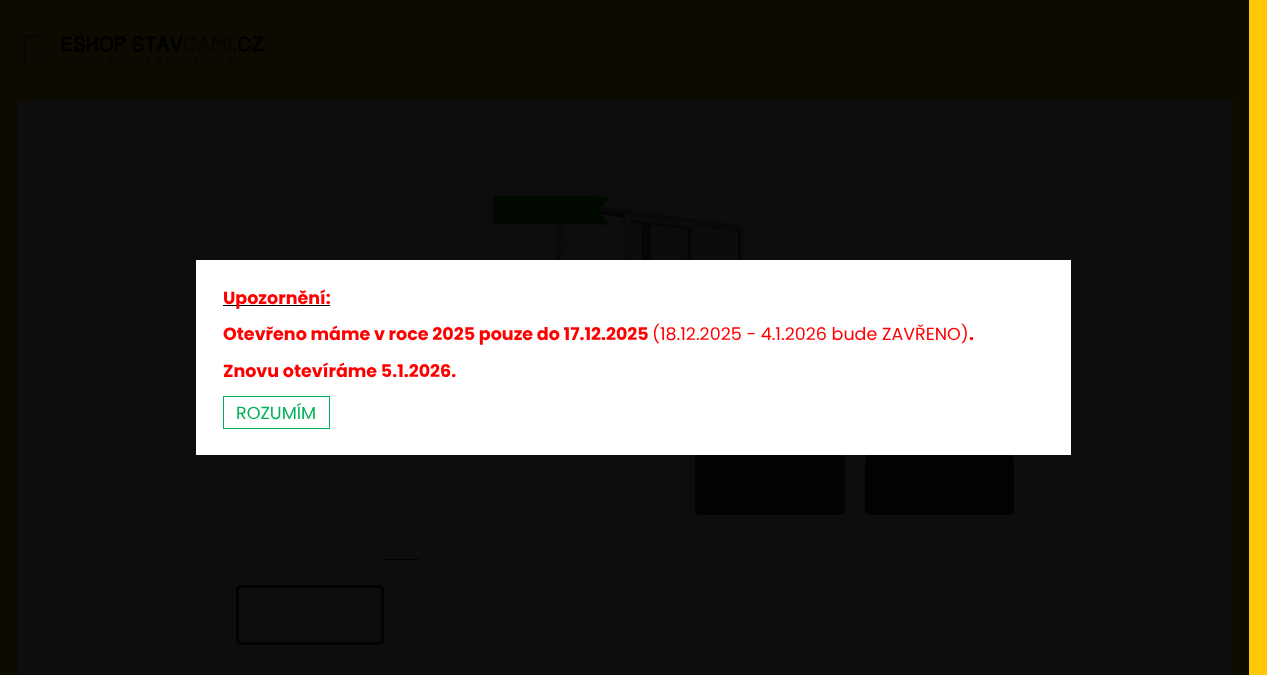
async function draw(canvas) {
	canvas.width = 1267;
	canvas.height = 675;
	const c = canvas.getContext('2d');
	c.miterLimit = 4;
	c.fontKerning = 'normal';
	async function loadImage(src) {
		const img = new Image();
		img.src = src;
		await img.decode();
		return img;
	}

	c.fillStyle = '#ffc702';
	c.fillRect(0, 0, 1267, 675);
	c.fillStyle = '#0d0a00';
	c.fillRect(0, 0, 1249, 675);
	c.drawImage(await loadImage('img1.png'), 20, 35, 244, 30);
	c.fillStyle = '#0d0d0d';
	c.fillRect(18, 100, 1215, 575);
	c.drawImage(await loadImage('img2.png'), 542, 200, 216, 60);
	c.fillStyle = '#000800';
	c.fillRect(493, 196, 102, 28);
	c.beginPath();
	c.moveTo(580, 209.5);
	c.lineTo(595, 209.5);
	c.lineTo(610, 224.5);
	c.lineTo(595, 224.5);
	c.closePath();
	c.fill();
	c.beginPath();
	c.moveTo(595, 197);
	c.lineTo(610, 197);
	c.lineTo(595, 212);
	c.lineTo(580, 212);
	c.closePath();
	c.fill();
	c.fillStyle = '#fff';
	c.fillRect(196, 260, 875, 195);
	c.fillStyle = '#000';
	c.fillRect(223, 305, 107, 1);
	c.font = 'bold 17.5px Poppins';
	c.fillStyle = '#f00';
	c.fillText('Upozornění:', 223, 304);
	c.fillText('Otevřeno máme v roce 2025 pouze do 17.12.2025', 223, 340);
	c.font = '17.5px Poppins';
	c.fillText('(18.12.2025 - 4.1.2026 bude ZAVŘENO)', 652, 340);
	c.font = 'bold 17.5px Poppins';
	c.fillText('.', 969, 340);
	c.fillText('Znovu otevíráme 5.1.2026.', 223, 377);
	c.strokeStyle = '#01b159';
	c.strokeRect(223.5, 396.5, 106, 32);
	c.font = '17.5px Poppins';
	c.fillStyle = '#01b159';
	c.fillText('ROZUMÍM', 236, 419);
	c.fillStyle = '#020202';
	c.beginPath();
	c.roundRect(695, 455, 150, 60, 5);
	c.fill();
	c.beginPath();
	c.roundRect(865, 455, 149, 60, 5);
	c.fill();
	c.fillRect(385, 559, 35, 1);
	c.beginPath();
	c.roundRect(237.5, 586.5, 145, 57, 3.5);
	c.strokeStyle = '#020202';
	c.lineWidth = 3;
	c.stroke();
}

draw(document.querySelector('canvas'));
